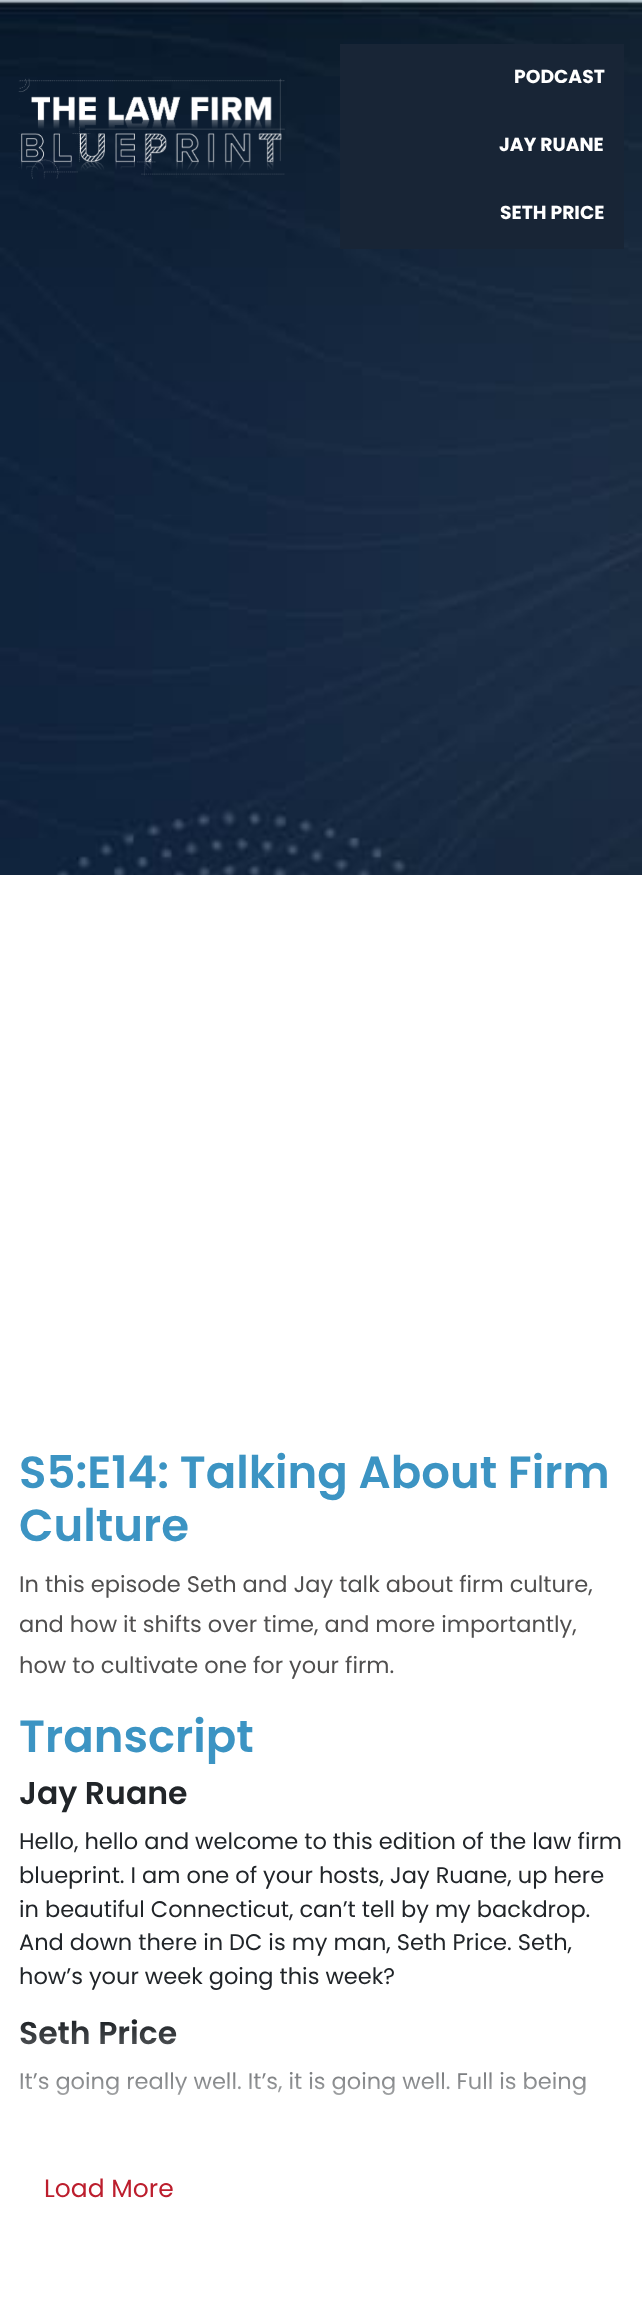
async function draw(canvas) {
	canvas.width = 642;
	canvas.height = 2318;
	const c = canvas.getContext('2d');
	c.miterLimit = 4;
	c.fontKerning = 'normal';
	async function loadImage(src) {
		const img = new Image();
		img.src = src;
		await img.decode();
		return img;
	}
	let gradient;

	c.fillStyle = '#fff';
	c.fillRect(0, 0, 642, 2318);
	c.drawImage(await loadImage('img1.png'), 0, 0, 642, 875);
	c.drawImage(await loadImage('img2.png'), 18, 78, 267, 101);
	c.fillStyle = '#182536';
	c.fillRect(340, 44, 284, 205);
	c.font = 'bold 18.75px Poppins';
	c.fillStyle = '#fff';
	for (const [text, x, y] of [
		['PODCAST', 514, 83],
		['JAY RUANE', 499, 151],
		['SETH PRICE', 500, 219],
	]) {
		c.fillText(text, x, y);
	}
	c.font = '600 45px Poppins';
	c.fillStyle = '#3c94c3';
	c.fillText('S5:E14: Talking About Firm', 19, 1488);
	c.fillText('Culture', 19, 1541);
	c.font = '22.5px Poppins';
	c.fillStyle = '#504f4f';
	for (const [text, x, y] of [
		['In this episode Seth and Jay talk about firm culture,', 19, 1592],
		['and how it shifts over time, and more importantly,', 19, 1632],
		['how to cultivate one for your firm.', 19, 1673],
	]) {
		c.fillText(text, x, y);
	}
	c.font = '600 45px Poppins';
	c.fillStyle = '#3c94c3';
	c.fillText('Transcript', 19, 1752);
	c.font = '600 31.5px Poppins';
	c.fillStyle = '#212529';
	c.fillText('Jay Ruane', 19, 1804);
	c.font = '22.5px Poppins';
	for (const [text, x, y] of [
		['Hello, hello and welcome to this edition of the law firm', 19, 1849],
		['blueprint. I am one of your hosts, Jay Ruane, up here', 19, 1883],
		['in beautiful Connecticut, can’t tell by my backdrop.', 19, 1917],
		['And down there in DC is my man, Seth Price. Seth,', 19, 1950],
		['how’s your week going this week?', 19, 1984],
	]) {
		c.fillText(text, x, y);
	}
	c.font = '600 31.5px Poppins';
	c.fillText('Seth Price', 19, 2044);
	c.font = '22.5px Poppins';
	c.fillText('It’s going really well. It’s, it is going well. Full is being', 19, 2089);
	gradient = c.createLinearGradient(321, 2150, 321, 2021);
	gradient.addColorStop(0, '#fff');
	gradient.addColorStop(1, '#ffffff00');
	c.fillStyle = gradient;
	c.fillRect(20, 2024, 565, 72);
	c.font = '25px Poppins';
	c.fillStyle = '#bc1e2d';
	c.fillText('Load More', 44, 2197);
}

draw(document.querySelector('canvas'));
